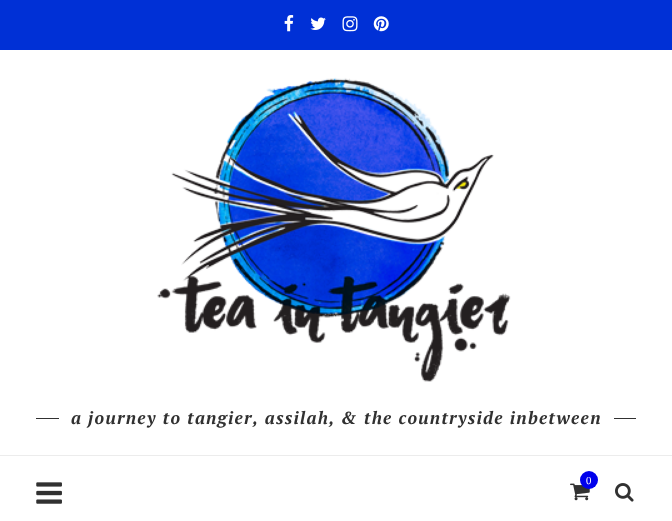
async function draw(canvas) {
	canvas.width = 672;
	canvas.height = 521;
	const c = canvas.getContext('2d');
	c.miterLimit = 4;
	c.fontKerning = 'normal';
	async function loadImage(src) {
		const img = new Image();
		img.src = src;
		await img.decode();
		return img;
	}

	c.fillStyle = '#fff';
	c.fillRect(0, 0, 672, 521);
	c.fillStyle = '#0030d6';
	c.fillRect(0, 0, 672, 50);
	c.drawImage(await loadImage('img1.png'), 284, 15, 10, 17);
	c.drawImage(await loadImage('img2.png'), 310, 17, 16, 13);
	c.drawImage(await loadImage('img3.png'), 342, 16, 16, 16);
	c.drawImage(await loadImage('img4.png'), 373, 16, 16, 16);
	c.drawImage(await loadImage('img5.png'), 157, 77, 354, 305);
	c.fillStyle = '#313131';
	c.fillRect(36, 418, 23, 1);
	c.letterSpacing = '1.25px';
	c.font = 'italic bold 17.5px PT Serif';
	c.fillText('a journey to tangier, assilah, & the countryside inbetween', 71, 424);
	c.fillRect(614, 418, 22, 1);
	c.fillStyle = '#ececec';
	c.fillRect(0, 455, 672, 1);
	c.drawImage(await loadImage('img6.png'), 570, 483, 20, 18);
	c.fillStyle = '#0000ec';
	c.beginPath();
	c.arc(589, 480, 9, 0, 2 * Math.PI);
	c.fill();
	c.letterSpacing = '0px';
	c.font = '10px PT Serif';
	c.fillStyle = '#fff';
	c.fillText('0', 586, 484);
	c.drawImage(await loadImage('img7.png'), 36, 482, 26, 22);
	c.drawImage(await loadImage('img8.png'), 615, 483, 19, 19);
}

draw(document.querySelector('canvas'));
